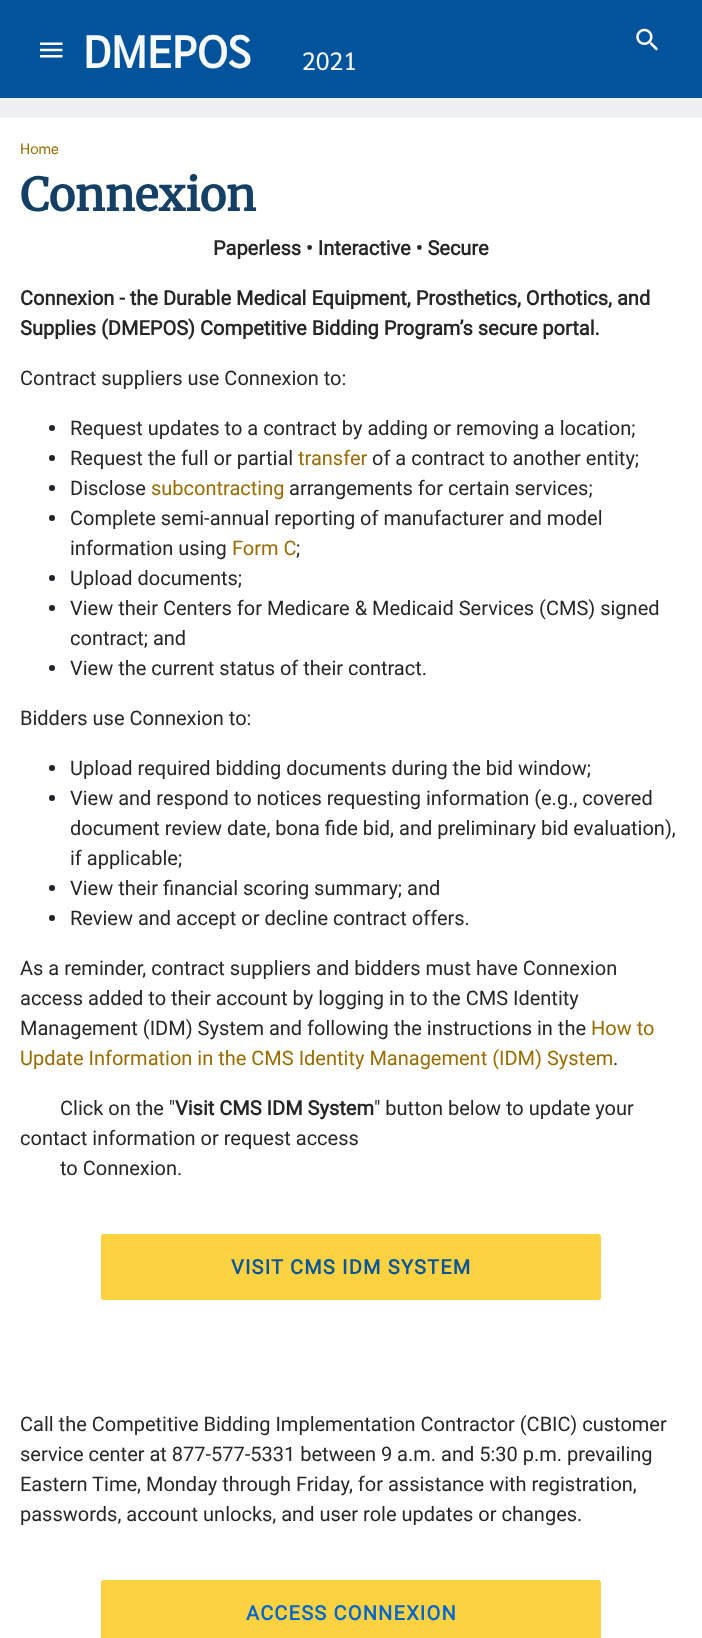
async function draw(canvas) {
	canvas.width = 702;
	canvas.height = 1638;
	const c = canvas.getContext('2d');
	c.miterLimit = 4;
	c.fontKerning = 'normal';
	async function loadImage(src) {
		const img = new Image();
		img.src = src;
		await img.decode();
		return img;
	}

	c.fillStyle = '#fff';
	c.fillRect(0, 0, 702, 1638);
	c.fillStyle = '#01539c';
	c.fillRect(0, 0, 702, 98);
	c.drawImage(await loadImage('img1.png'), 40, 42, 23, 16);
	c.font = 'bold 45px Sarabun';
	c.fillStyle = '#f7f9fc';
	c.fillText('DMEPOS', 83, 68);
	c.drawImage(await loadImage('img2.png'), 636, 28, 22, 23);
	c.font = '25px Sarabun';
	c.fillText('2021', 302, 70);
	c.fillStyle = '#edf1f2';
	c.fillRect(0, 98, 702, 20);
	c.font = '15px Sarabun';
	c.fillStyle = '#996b00';
	c.fillText('Home', 20, 154);
	c.font = 'bold 45px Merriweather';
	c.fillStyle = '#144066';
	c.fillText('Connexion', 20, 211);
	c.font = 'bold 20px Roboto';
	c.fillStyle = '#262626';
	for (const [text, x, y] of [
		['Paperless • Interactive • Secure', 213, 255],
		['Connexion - the Durable Medical Equipment, Prosthetics, Orthotics, and', 20, 305],
		['Supplies (DMEPOS) Competitive Bidding Program’s secure portal.', 20, 335],
	]) {
		c.fillText(text, x, y);
	}
	c.font = '20px Roboto';
	c.fillText('Contract suppliers use Connexion to:', 20, 385);
	c.fillStyle = '#212529';
	c.beginPath();
	c.arc(52, 428, 3, 0, 2 * Math.PI);
	c.fill();
	c.fillStyle = '#262626';
	c.fillText('Request updates to a contract by adding or removing a location;', 70, 435);
	c.fillStyle = '#212529';
	c.beginPath();
	c.arc(52, 458, 3, 0, 2 * Math.PI);
	c.fill();
	c.fillStyle = '#262626';
	c.fillText('Request the full or partial', 70, 465);
	c.fillStyle = '#996b00';
	c.fillText('transfer', 298, 465);
	c.fillStyle = '#262626';
	c.fillText('of a contract to another entity;', 372, 465);
	c.fillStyle = '#212529';
	c.beginPath();
	c.arc(52, 488, 3, 0, 2 * Math.PI);
	c.fill();
	c.fillStyle = '#262626';
	c.fillText('Disclose', 70, 495);
	c.fillStyle = '#996b00';
	c.fillText('subcontracting', 151, 495);
	c.fillStyle = '#262626';
	c.fillText('arrangements for certain services;', 289, 495);
	c.fillStyle = '#212529';
	c.beginPath();
	c.arc(52, 518, 3, 0, 2 * Math.PI);
	c.fill();
	c.fillStyle = '#262626';
	c.fillText('Complete semi-annual reporting of manufacturer and model', 70, 525);
	c.fillText('information using', 70, 555);
	c.fillStyle = '#996b00';
	c.fillText('Form C', 232, 555);
	c.fillStyle = '#262626';
	c.fillText(';', 296, 555);
	c.fillStyle = '#212529';
	c.beginPath();
	c.arc(52, 578, 3, 0, 2 * Math.PI);
	c.fill();
	c.fillStyle = '#262626';
	c.fillText('Upload documents;', 70, 585);
	c.fillStyle = '#212529';
	c.beginPath();
	c.arc(52, 608, 3, 0, 2 * Math.PI);
	c.fill();
	c.fillStyle = '#262626';
	c.fillText('View their Centers for Medicare & Medicaid Services (CMS) signed', 70, 615);
	c.fillText('contract; and', 70, 645);
	c.fillStyle = '#212529';
	c.beginPath();
	c.arc(52, 668, 3, 0, 2 * Math.PI);
	c.fill();
	c.fillStyle = '#262626';
	c.fillText('View the current status of their contract.', 70, 675);
	c.fillText('Bidders use Connexion to:', 20, 725);
	c.fillStyle = '#212529';
	c.beginPath();
	c.arc(52, 768, 3, 0, 2 * Math.PI);
	c.fill();
	c.fillStyle = '#262626';
	c.fillText('Upload required bidding documents during the bid window;', 70, 775);
	c.fillStyle = '#212529';
	c.beginPath();
	c.arc(52, 798, 3, 0, 2 * Math.PI);
	c.fill();
	c.fillStyle = '#262626';
	for (const [text, x, y] of [
		['View and respond to notices requesting information (e.g., covered', 70, 805],
		['document review date, bona fide bid, and preliminary bid evaluation),', 70, 835],
		['if applicable;', 70, 865],
	]) {
		c.fillText(text, x, y);
	}
	c.fillStyle = '#212529';
	c.beginPath();
	c.arc(52, 888, 3, 0, 2 * Math.PI);
	c.fill();
	c.fillStyle = '#262626';
	c.fillText('View their financial scoring summary; and', 70, 895);
	c.fillStyle = '#212529';
	c.beginPath();
	c.arc(52, 918, 3, 0, 2 * Math.PI);
	c.fill();
	c.fillStyle = '#262626';
	for (const [text, x, y] of [
		['Review and accept or decline contract offers.', 70, 925],
		['As a reminder, contract suppliers and bidders must have Connexion', 20, 975],
		['access added to their account by logging in to the CMS Identity', 20, 1005],
		['Management (IDM) System and following the instructions in the', 20, 1035],
	]) {
		c.fillText(text, x, y);
	}
	c.fillStyle = '#996b00';
	c.fillText('How to', 591, 1035);
	c.fillText('Update Information in the CMS Identity Management (IDM) System', 20, 1065);
	c.fillStyle = '#262626';
	c.fillText('.', 613, 1065);
	c.fillText('Click on the "', 60, 1115);
	c.font = 'bold 20px Roboto';
	c.fillText('Visit CMS IDM System', 175, 1115);
	c.font = '20px Roboto';
	for (const [text, x, y] of [
		['" button below to update your', 374, 1115],
		['contact information or request access', 20, 1145],
		['to Connexion.', 60, 1175],
	]) {
		c.fillText(text, x, y);
	}
	c.fillStyle = '#fcd240';
	c.beginPath();
	c.roundRect(101, 1234, 500, 66, 2.5);
	c.fill();
	c.letterSpacing = '1.2px';
	c.font = 'bold 20px Roboto';
	c.fillStyle = '#085599';
	c.fillText('VISIT CMS IDM SYSTEM', 231, 1274);
	c.letterSpacing = '0px';
	c.font = '20px Roboto';
	c.fillStyle = '#262626';
	for (const [text, x, y] of [
		['Call the Competitive Bidding Implementation Contractor (CBIC) customer', 20, 1431],
		['service center at 877-577-5331 between 9 a.m. and 5:30 p.m. prevailing', 20, 1461],
		['Eastern Time, Monday through Friday, for assistance with registration,', 20, 1491],
		['passwords, account unlocks, and user role updates or changes.', 20, 1521],
	]) {
		c.fillText(text, x, y);
	}
	c.fillStyle = '#fcd240';
	c.beginPath();
	c.roundRect(101, 1580, 500, 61, 2.5);
	c.fill();
	c.letterSpacing = '1.2px';
	c.font = 'bold 20px Roboto';
	c.fillStyle = '#06c';
	c.fillText('ACCESS CONNEXION', 246, 1620);
}

draw(document.querySelector('canvas'));
